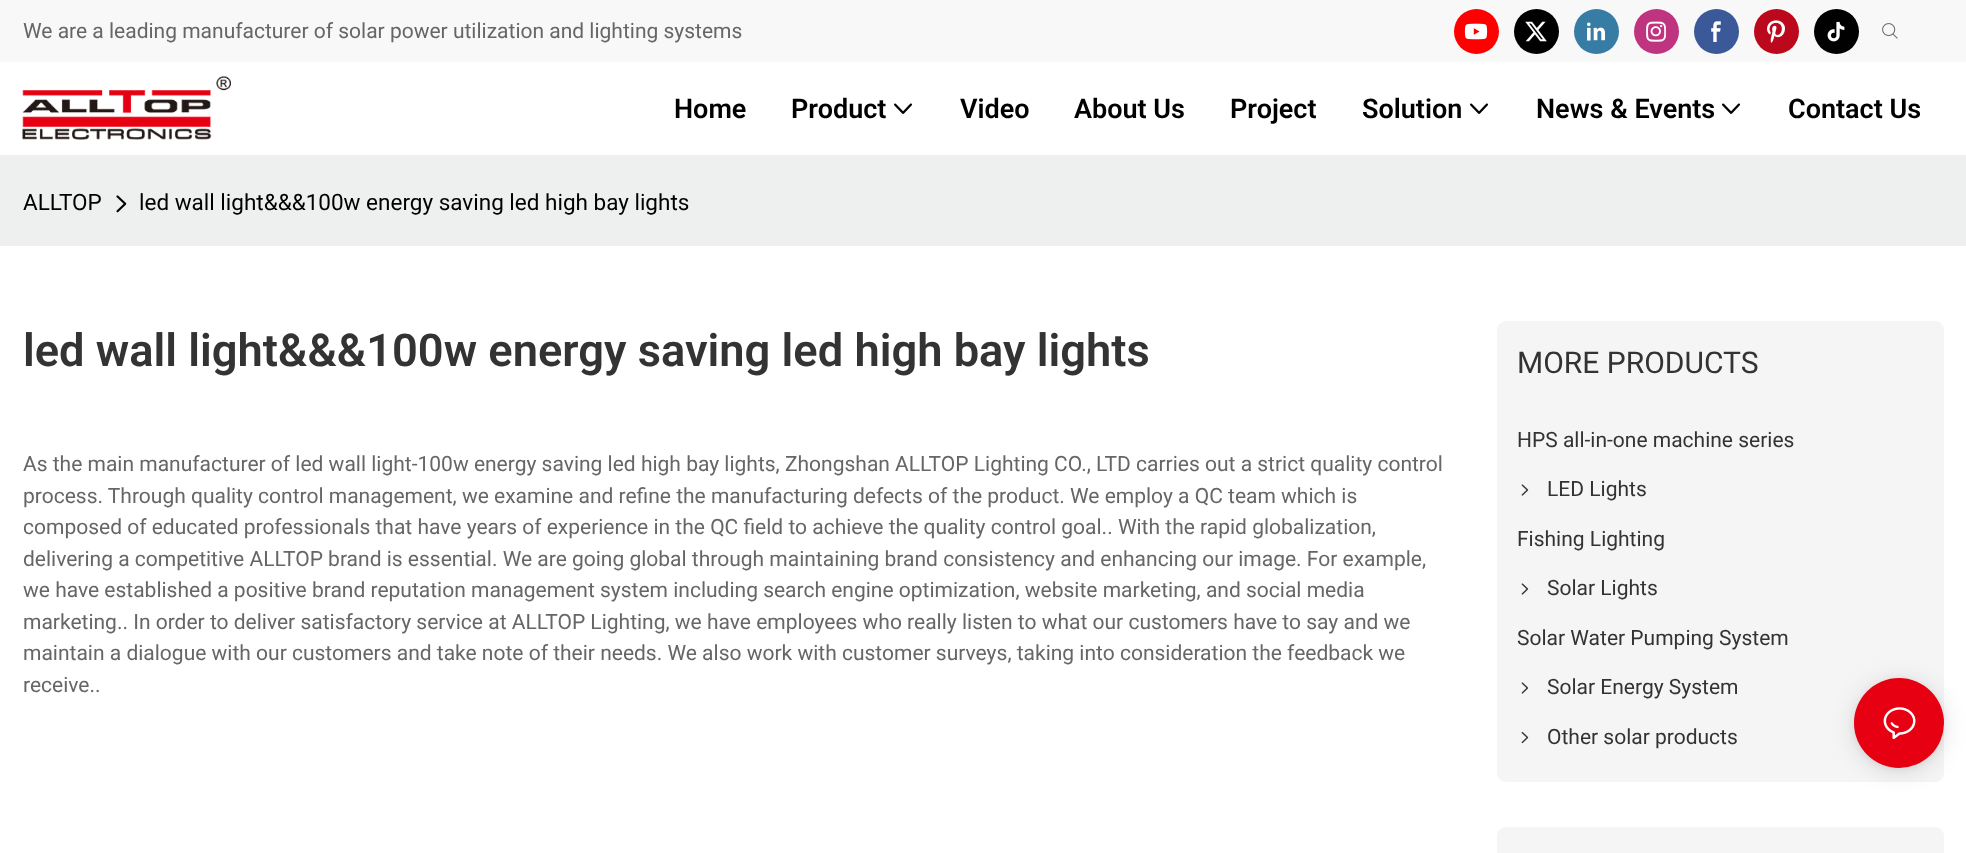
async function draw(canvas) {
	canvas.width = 1966;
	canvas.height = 853;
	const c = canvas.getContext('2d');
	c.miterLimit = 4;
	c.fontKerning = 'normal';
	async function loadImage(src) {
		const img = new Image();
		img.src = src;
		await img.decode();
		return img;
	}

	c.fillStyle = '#fff';
	c.fillRect(0, 0, 1966, 853);
	c.fillStyle = '#f8f8f8';
	c.fillRect(0, 0, 1966, 62);
	c.font = '21px Roboto';
	c.fillStyle = '#666';
	c.fillText('We are a leading manufacturer of solar power utilization and lighting systems', 23, 38);
	c.fillStyle = '#f00';
	c.beginPath();
	c.arc(1476.5, 31.5, 22.5, 0, 2 * Math.PI);
	c.fill();
	c.drawImage(await loadImage('img1.png'), 1464, 23, 24, 17);
	c.fillStyle = '#000';
	c.beginPath();
	c.arc(1536.5, 31.5, 22.5, 0, 2 * Math.PI);
	c.fill();
	c.drawImage(await loadImage('img2.png'), 1525, 21, 22, 21);
	c.fillStyle = '#377ca5';
	c.beginPath();
	c.arc(1596.5, 31.5, 22.5, 0, 2 * Math.PI);
	c.fill();
	c.drawImage(await loadImage('img3.png'), 1587, 22, 18, 19);
	c.fillStyle = '#be347f';
	c.beginPath();
	c.arc(1656.5, 31.5, 22.5, 0, 2 * Math.PI);
	c.fill();
	c.drawImage(await loadImage('img4.png'), 1646, 21, 20, 21);
	c.fillStyle = '#3b5998';
	c.beginPath();
	c.arc(1716.5, 31.5, 22.5, 0, 2 * Math.PI);
	c.fill();
	c.drawImage(await loadImage('img5.png'), 1711, 21, 10, 21);
	c.fillStyle = '#bc081c';
	c.beginPath();
	c.arc(1776.5, 31.5, 22.5, 0, 2 * Math.PI);
	c.fill();
	c.drawImage(await loadImage('img6.png'), 1767, 20, 18, 23);
	c.fillStyle = '#010101';
	c.beginPath();
	c.arc(1836.5, 31.5, 22.5, 0, 2 * Math.PI);
	c.fill();
	c.drawImage(await loadImage('img7.png'), 1827, 21, 18, 21);
	c.drawImage(await loadImage('img8.png'), 1882, 23, 16, 16);
	c.drawImage(await loadImage('img9.png'), 22, 76, 209, 64);
	c.font = '600 27px Roboto';
	c.fillStyle = '#000';
	c.fillText('Home', 674, 118);
	c.fillText('Product', 791, 118);
	c.drawImage(await loadImage('img10.png'), 894, 103, 18, 11);
	for (const [text, x, y] of [
		['Video', 960, 118],
		['About Us', 1074, 118],
		['Project', 1230, 118],
		['Solution', 1362, 118],
	]) {
		c.fillText(text, x, y);
	}
	c.drawImage(await loadImage('img10.png'), 1470, 103, 18, 11);
	c.fillText('News & Events', 1536, 118);
	c.drawImage(await loadImage('img10.png'), 1722, 103, 18, 11);
	c.fillText('Contact Us', 1788, 118);
	c.fillStyle = '#eeefef';
	c.fillRect(0, 155, 1966, 91);
	c.font = '22.5px Roboto';
	c.fillStyle = '#000';
	c.fillText('ALLTOP', 23, 210);
	c.drawImage(await loadImage('img11.png'), 116, 195, 11, 18);
	c.fillText('led wall light&&&100w energy saving led high bay lights', 139, 210);
	c.font = '600 45.25px Roboto';
	c.fillStyle = '#333';
	c.fillText('led wall light&&&100w energy saving led high bay lights', 23, 366);
	c.font = '21px Roboto';
	c.fillStyle = '#666';
	for (const [text, x, y] of [
		['As the main manufacturer of led wall light-100w energy saving led high bay lights, Zhongshan ALLTOP Lighting CO., LTD carries out a strict quality control', 23, 471],
		['process. Through quality control management, we examine and refine the manufacturing defects of the product. We employ a QC team which is', 23, 503],
		['composed of educated professionals that have years of experience in the QC field to achieve the quality control goal.. With the rapid globalization,', 23, 534],
		['delivering a competitive ALLTOP brand is essential. We are going global through maintaining brand consistency and enhancing our image. For example,', 23, 566],
		['we have established a positive brand reputation management system including search engine optimization, website marketing, and social media', 23, 597],
		['marketing.. In order to deliver satisfactory service at ALLTOP Lighting, we have employees who really listen to what our customers have to say and we', 23, 629],
		['maintain a dialogue with our customers and take note of their needs. We also work with customer surveys, taking into consideration the feedback we', 23, 660],
		['receive..', 23, 692],
	]) {
		c.fillText(text, x, y);
	}
	c.fillStyle = '#f5f5f5';
	c.beginPath();
	c.roundRect(1497, 321, 447, 461, 9);
	c.fill();
	c.font = '30px Roboto';
	c.fillStyle = '#333';
	c.fillText('MORE PRODUCTS', 1517, 373);
	c.font = '21px Roboto';
	c.fillText('HPS all-in-one machine series', 1517, 447);
	c.drawImage(await loadImage('img12.png'), 1521, 484, 8, 12);
	c.fillText('LED Lights', 1547, 496);
	c.fillText('Fishing Lighting', 1517, 546);
	c.drawImage(await loadImage('img12.png'), 1521, 583, 8, 12);
	c.fillText('Solar Lights', 1547, 595);
	c.fillText('Solar Water Pumping System', 1517, 645);
	c.drawImage(await loadImage('img12.png'), 1521, 682, 8, 12);
	c.fillText('Solar Energy System', 1547, 694);
	c.drawImage(await loadImage('img13.png'), 1521, 731, 8, 13);
	c.fillText('Other solar products', 1547, 744);
	c.fillStyle = '#f5f5f5';
	c.beginPath();
	c.moveTo(1506, 827);
	c.lineTo(1935, 827);
	c.bezierCurveTo(1940, 827, 1944, 831, 1944, 836);
	c.lineTo(1944, 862);
	c.lineTo(1497, 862);
	c.lineTo(1497, 836);
	c.bezierCurveTo(1497, 831, 1501, 827, 1506, 827);
	c.closePath();
	c.fill();
	c.fillStyle = '#0000001f';
	c.filter = 'blur(12px)';
	c.beginPath();
	c.roundRect(1854, 681, 90, 90, 45);
	c.fill();
	c.filter = 'none';
	c.fillStyle = '#0000000f';
	c.filter = 'blur(3px)';
	c.beginPath();
	c.roundRect(1854, 680, 90, 90, 45);
	c.fill();
	c.filter = 'none';
	c.fillStyle = '#e60012';
	c.beginPath();
	c.arc(1899, 723, 45, 0, 2 * Math.PI);
	c.fill();
	c.drawImage(await loadImage('img14.png'), 1883, 707, 33, 33);
}

draw(document.querySelector('canvas'));
